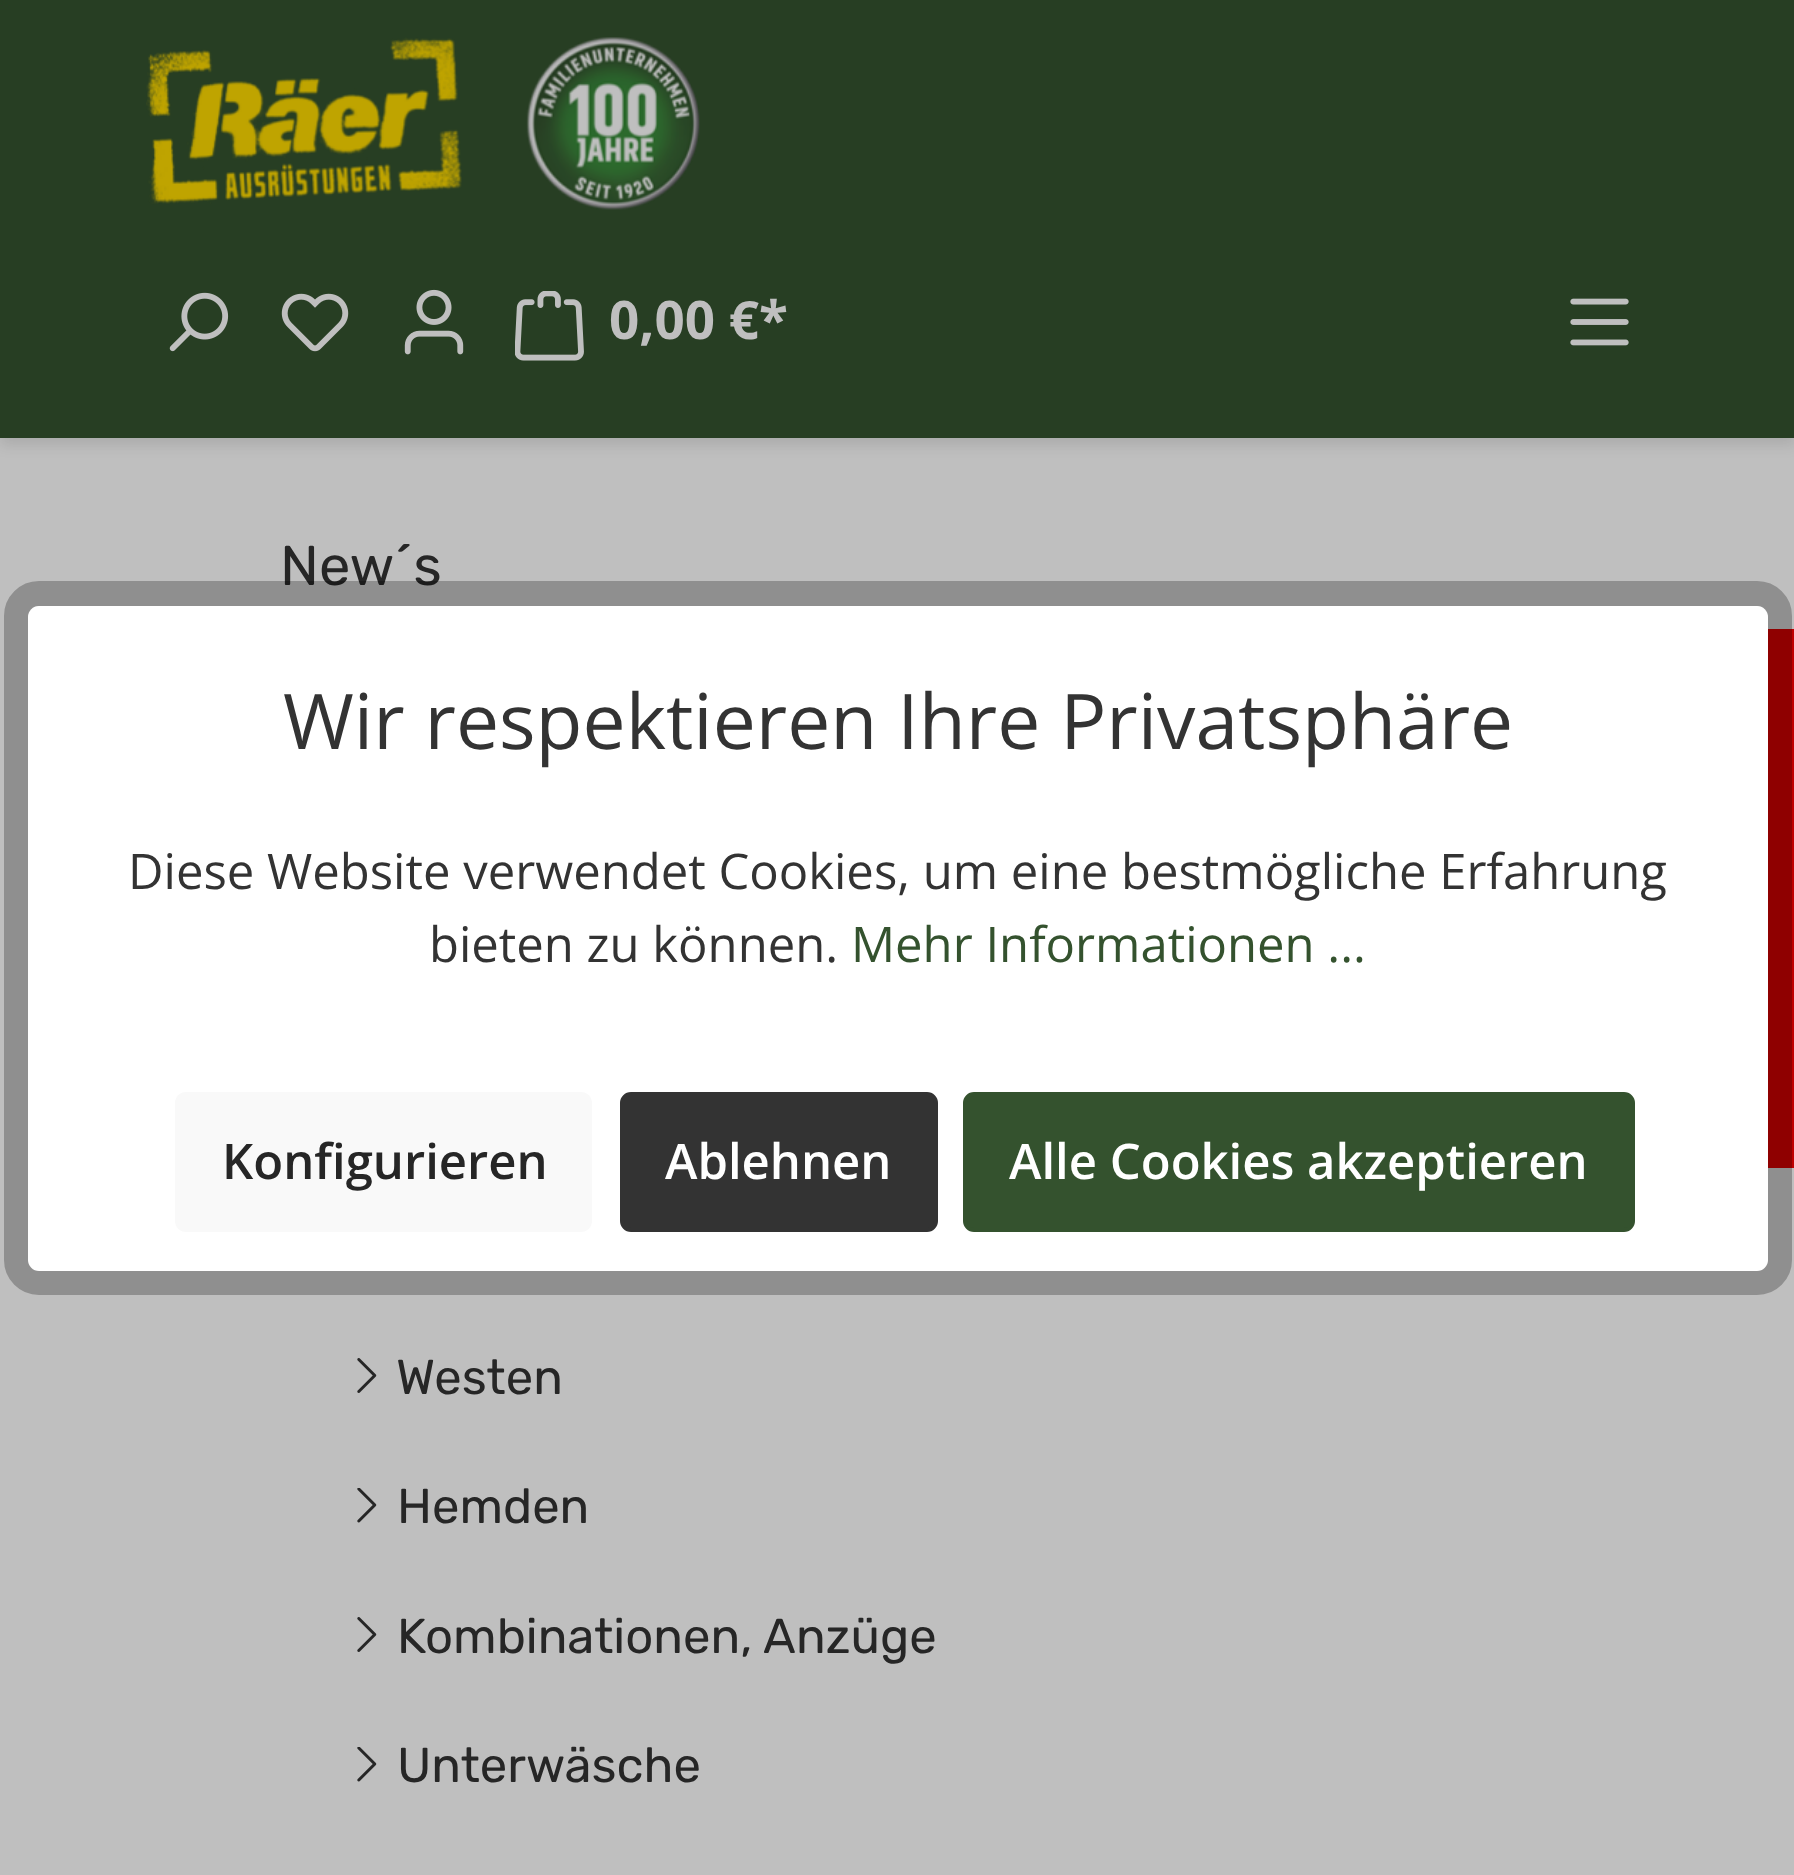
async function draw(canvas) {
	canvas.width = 1794;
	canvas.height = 1875;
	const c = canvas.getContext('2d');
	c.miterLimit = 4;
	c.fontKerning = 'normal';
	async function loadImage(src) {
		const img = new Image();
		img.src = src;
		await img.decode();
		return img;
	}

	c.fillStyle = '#bfbfbf';
	c.fillRect(0, 0, 1794, 1875);
	c.fillStyle = '#0000001a';
	c.filter = 'blur(7px)';
	c.beginPath();
	c.rect(0, 7, 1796, 438);
	c.fill();
	c.filter = 'none';
	c.fillStyle = '#273e23';
	c.fillRect(0, 0, 1794, 438);
	c.drawImage(await loadImage('img1.png'), 146, 37, 554, 173);
	c.drawImage(await loadImage('img2.png'), 169, 292, 60, 60);
	c.drawImage(await loadImage('img3.png'), 281, 293, 68, 59);
	c.drawImage(await loadImage('img4.png'), 404, 289, 60, 66);
	c.drawImage(await loadImage('img5.png'), 515, 291, 69, 70);
	c.font = 'bold 53px Open Sans';
	c.fillStyle = '#bfbfbf';
	c.fillText('0,00 €*', 609, 339);
	c.drawImage(await loadImage('img6.png'), 1570, 298, 59, 48);
	c.font = '56px Rubik';
	c.fillStyle = '#262626';
	c.fillText('New´s', 280, 585);
	c.drawImage(await loadImage('img7.png'), 357, 1358, 20, 35);
	c.font = '49px Rubik';
	c.fillText('Westen', 396, 1394);
	c.drawImage(await loadImage('img8.png'), 357, 1488, 20, 35);
	c.fillText('Hemden', 397, 1523);
	c.drawImage(await loadImage('img7.png'), 357, 1617, 20, 35);
	c.fillText('Kombinationen, Anzüge', 397, 1653);
	c.drawImage(await loadImage('img8.png'), 357, 1747, 20, 35);
	c.fillText('Unterwäsche', 397, 1782);
	c.fillStyle = '#bf0000';
	c.beginPath();
	c.moveTo(1671, 1151);
	c.lineTo(1671, 646);
	c.bezierCurveTo(1671, 636, 1679, 629, 1688, 629);
	c.lineTo(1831, 629);
	c.lineTo(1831, 1168);
	c.lineTo(1688, 1168);
	c.bezierCurveTo(1679, 1168, 1671, 1161, 1671, 1151);
	c.closePath();
	c.fill();
	c.beginPath();
	c.roundRect(16.5, 593.5, 1763, 689, 22.5);
	c.strokeStyle = '#00000040';
	c.lineWidth = 25;
	c.stroke();
	c.fillStyle = '#fff';
	c.beginPath();
	c.roundRect(28, 606, 1740, 665, 11);
	c.fill();
	c.font = '76.75px Open Sans';
	c.fillStyle = '#333';
	c.fillText('Wir respektieren Ihre Privatsphäre', 283, 749);
	c.font = '49px Open Sans';
	c.fillText('Diese Website verwendet Cookies, um eine bestmögliche Erfahrung', 128, 889);
	c.fillText('bieten zu können.', 429, 962);
	c.fillStyle = '#34522e';
	c.fillText('Mehr Informationen ...', 851, 962);
	c.fillStyle = '#f9f9f9';
	c.beginPath();
	c.roundRect(175, 1092, 417, 140, 11);
	c.fill();
	c.font = '600 49px Open Sans';
	c.fillStyle = '#262626';
	c.fillText('Konfigurieren', 222, 1179);
	c.fillStyle = '#333';
	c.beginPath();
	c.roundRect(622, 1094, 314, 136, 9);
	c.fill();
	c.strokeStyle = '#333';
	c.lineWidth = 4;
	c.stroke();
	c.fillStyle = '#fff';
	c.fillText('Ablehnen', 665, 1179);
	c.fillStyle = '#34522e';
	c.beginPath();
	c.roundRect(965, 1094, 668, 136, 9);
	c.fill();
	c.strokeStyle = '#34522e';
	c.stroke();
	c.fillStyle = '#fff';
	c.fillText('Alle Cookies akzeptieren', 1009, 1179);
}

draw(document.querySelector('canvas'));
